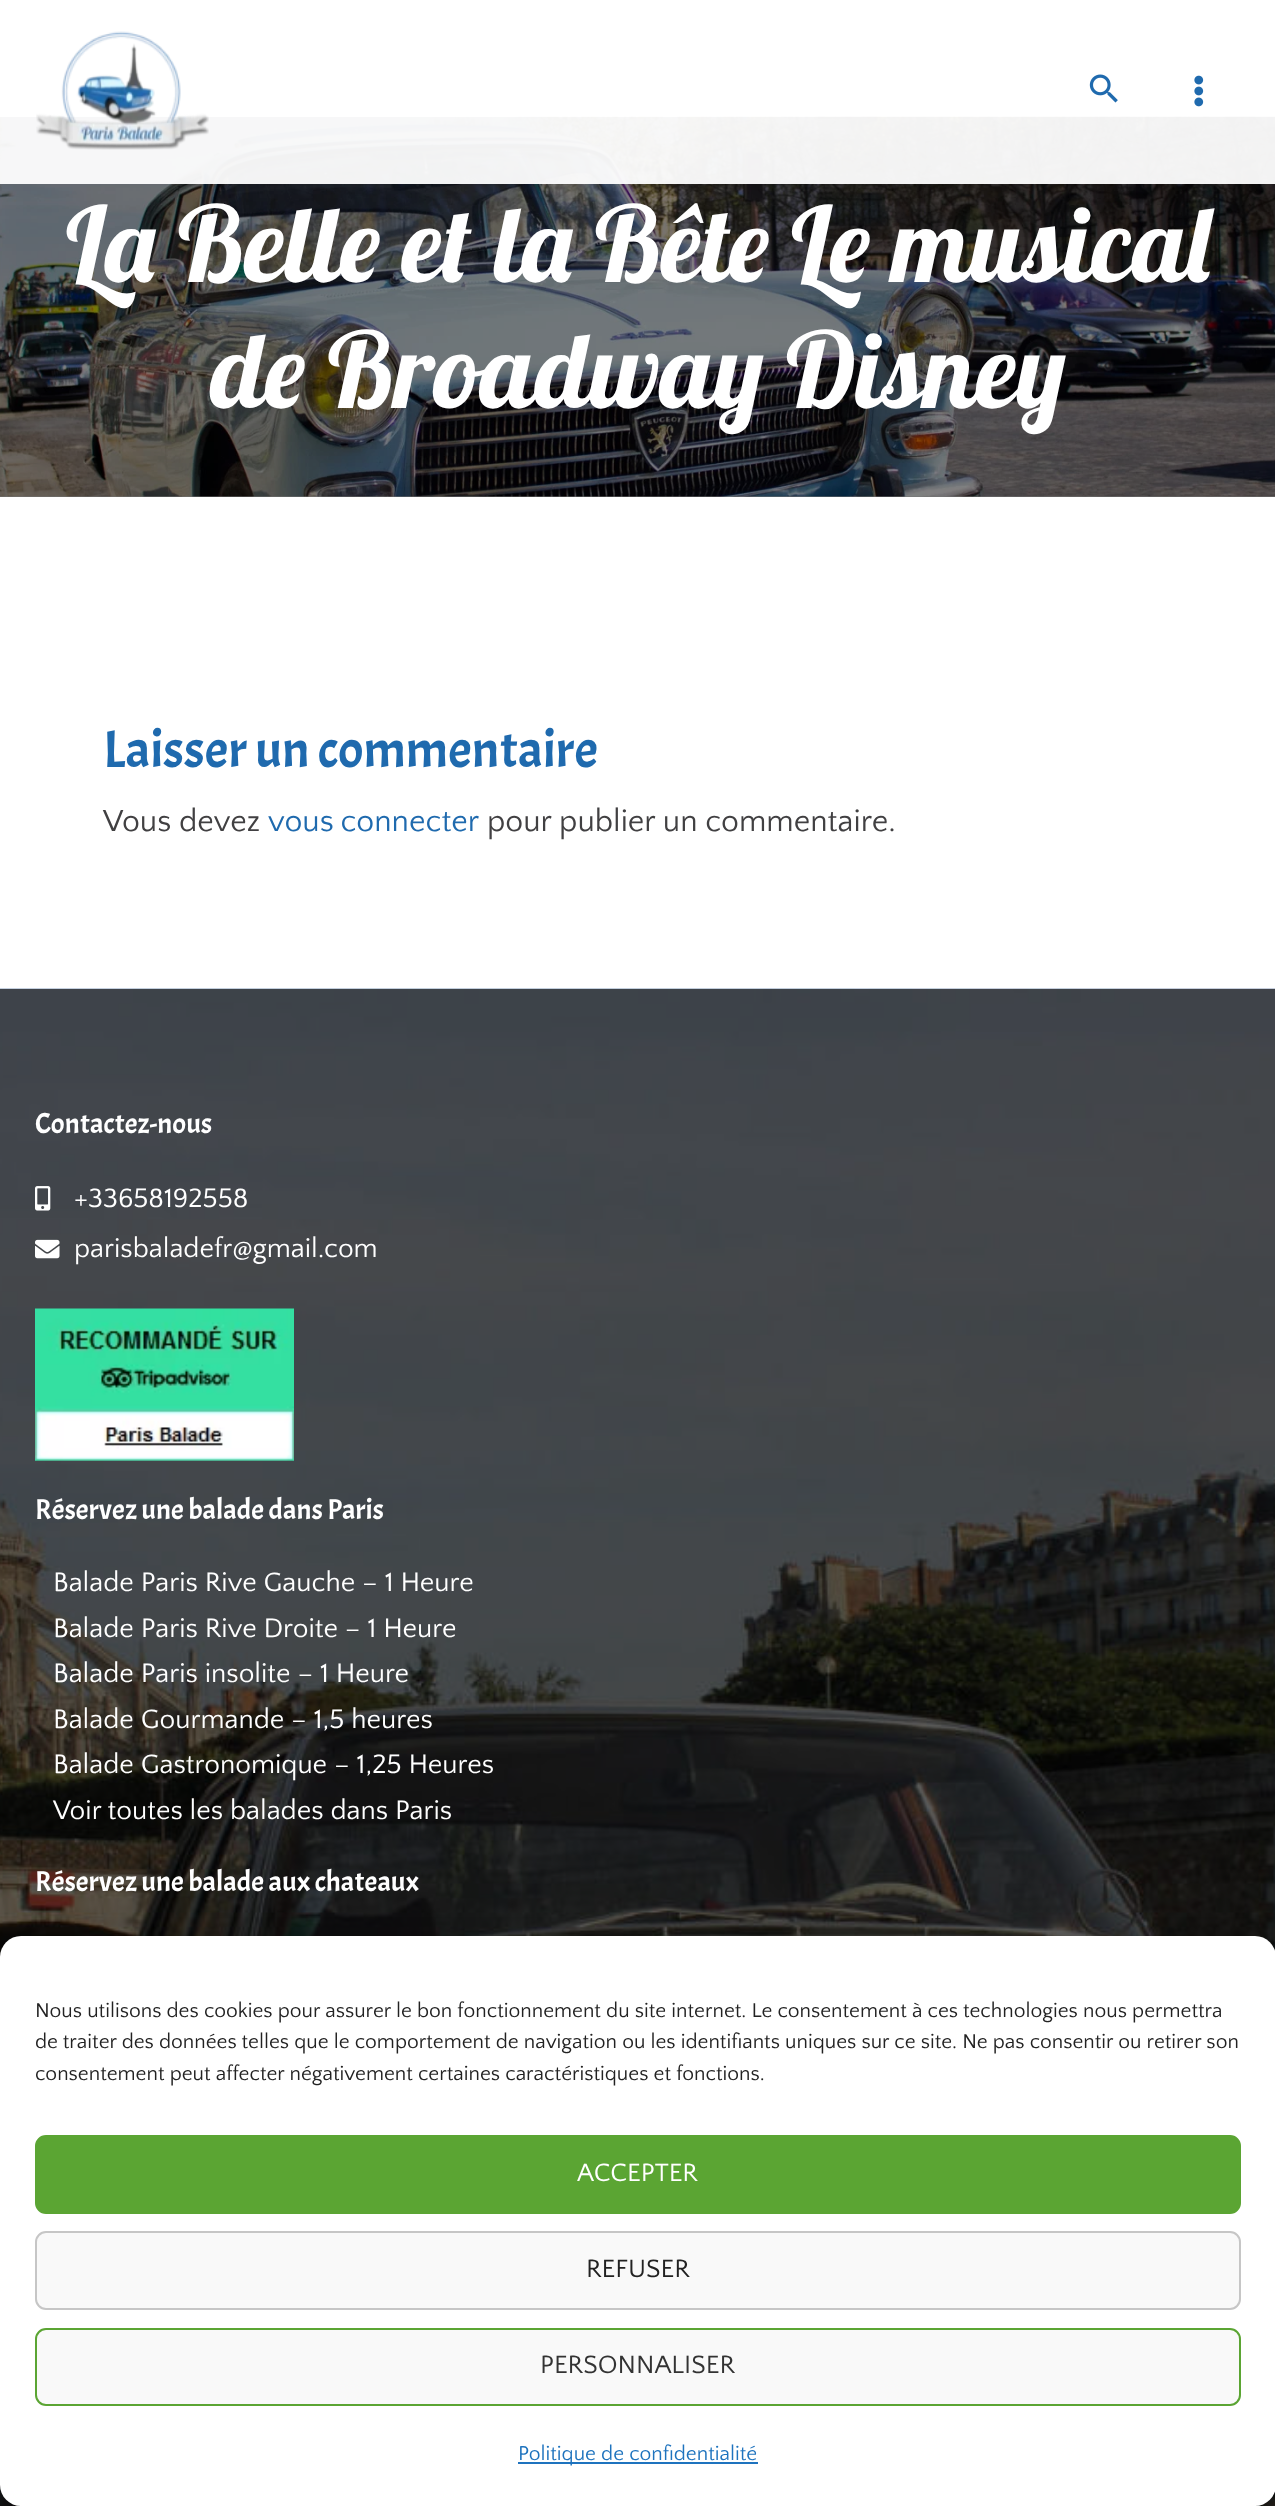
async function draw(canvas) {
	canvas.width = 1275;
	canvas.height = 2506;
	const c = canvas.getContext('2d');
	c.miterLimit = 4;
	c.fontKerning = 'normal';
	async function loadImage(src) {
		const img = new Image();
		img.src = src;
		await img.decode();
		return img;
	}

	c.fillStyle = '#fff';
	c.fillRect(0, 0, 1275, 2506);
	c.fillStyle = '#757575';
	c.fillRect(0, 496, 1275, 1);
	c.drawImage(await loadImage('img4.png'), 0, 116, 1275, 381);
	c.fillStyle = '#fffffff2';
	c.fillRect(0, 116, 1275, 68);
	c.drawImage(await loadImage('img1.png'), 36, 31, 173, 119);
	c.drawImage(await loadImage('img2.png'), 1089, 74, 29, 29);
	c.drawImage(await loadImage('img3.png'), 1194, 75, 10, 32);
	c.font = '105px Lobster';
	c.fillStyle = '#fff';
	c.fillText('La Belle et la Bête Le musical', 66, 282);
	c.fillText('de Broadway Disney', 211, 408);
	c.font = '52.75px Acme';
	c.fillStyle = '#1f6aae';
	c.fillText('Laisser un commentaire', 103, 767);
	c.font = '31.9px Quattrocento Sans';
	c.fillStyle = '#414042';
	c.fillText('Vous devez', 103, 831);
	c.wordSpacing = '-1px';
	c.fillStyle = '#1f6aae';
	c.fillText('vous connecter', 268, 831);
	c.wordSpacing = '0px';
	c.fillStyle = '#414042';
	c.fillText('pour publier un commentaire.', 487, 831);
	c.drawImage(await loadImage('img5.png'), 0, 988, 1275, 1518);
	c.font = '28.75px Acme';
	c.fillStyle = '#fff';
	c.fillText('Contactez-nous', 35, 1133);
	c.drawImage(await loadImage('img6.png'), 35, 1186, 16, 25);
	c.font = '28px Quattrocento Sans';
	c.fillText('+33658192558', 74, 1207);
	c.drawImage(await loadImage('img7.png'), 35, 1239, 25, 20);
	c.fillText('parisbaladefr@gmail.com', 74, 1257);
	c.drawImage(await loadImage('img8.png'), 35, 1308, 259, 153);
	c.font = '28.75px Acme';
	c.fillText('Réservez une balade dans Paris', 35, 1519);
	c.font = '28px Quattrocento Sans';
	for (const [text, x, y] of [
		['Balade Paris Rive Gauche – 1 Heure', 53, 1591],
		['Balade Paris Rive Droite – 1 Heure', 53, 1637],
		['Balade Paris insolite – 1 Heure', 53, 1682],
		['Balade Gourmande – 1,5 heures', 53, 1728],
		['Balade Gastronomique – 1,25 Heures', 53, 1773],
		['Voir toutes les balades dans Paris', 53, 1819],
	]) {
		c.fillText(text, x, y);
	}
	c.font = '28.75px Acme';
	c.fillText('Réservez une balade aux chateaux', 35, 1891);
	c.fillStyle = '#0000003b';
	c.filter = 'blur(5px)';
	c.beginPath();
	c.roundRect(0, 1946, 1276, 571, 21);
	c.fill();
	c.filter = 'none';
	c.fillStyle = '#00000030';
	c.filter = 'blur(17.5px)';
	c.beginPath();
	c.roundRect(0, 1953, 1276, 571, 21);
	c.fill();
	c.filter = 'none';
	c.fillStyle = '#fff';
	c.beginPath();
	c.roundRect(0, 1936, 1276, 570, 21);
	c.fill();
	c.font = '21px Quattrocento Sans';
	c.fillStyle = '#222';
	for (const [text, x, y] of [
		['Nous utilisons des cookies pour assurer le bon fonctionnement du site internet. Le consentement à ces technologies nous permettra', 35, 2017],
		['de traiter des données telles que le comportement de navigation ou les identifiants uniques sur ce site. Ne pas consentir ou retirer son', 35, 2048],
		['consentement peut affecter négativement certaines caractéristiques et fonctions.', 35, 2080],
	]) {
		c.fillText(text, x, y);
	}
	c.fillStyle = '#5ba533';
	c.beginPath();
	c.roundRect(36, 2136, 1204, 77, 10);
	c.fill();
	c.strokeStyle = '#5ba533';
	c.lineWidth = 2;
	c.stroke();
	c.font = '26.25px Quattrocento Sans';
	c.fillStyle = '#fff';
	c.fillText('ACCEPTER', 577, 2181);
	c.fillStyle = '#f9f9f9';
	c.beginPath();
	c.roundRect(36, 2232, 1204, 77, 10);
	c.fill();
	c.strokeStyle = '#c6c6c6';
	c.stroke();
	c.fillStyle = '#222';
	c.fillText('REFUSER', 586, 2277);
	c.fillStyle = '#f9f9f9';
	c.beginPath();
	c.roundRect(36, 2329, 1204, 76, 10);
	c.fill();
	c.strokeStyle = '#5ba533';
	c.stroke();
	c.fillStyle = '#333';
	c.fillText('PERSONNALISER', 540, 2373);
	c.fillStyle = '#1e73be';
	c.fillRect(518, 2462, 240, 2);
	c.font = '21px Quattrocento Sans';
	c.fillText('Politique de confidentialité', 518, 2460);
}

draw(document.querySelector('canvas'));
